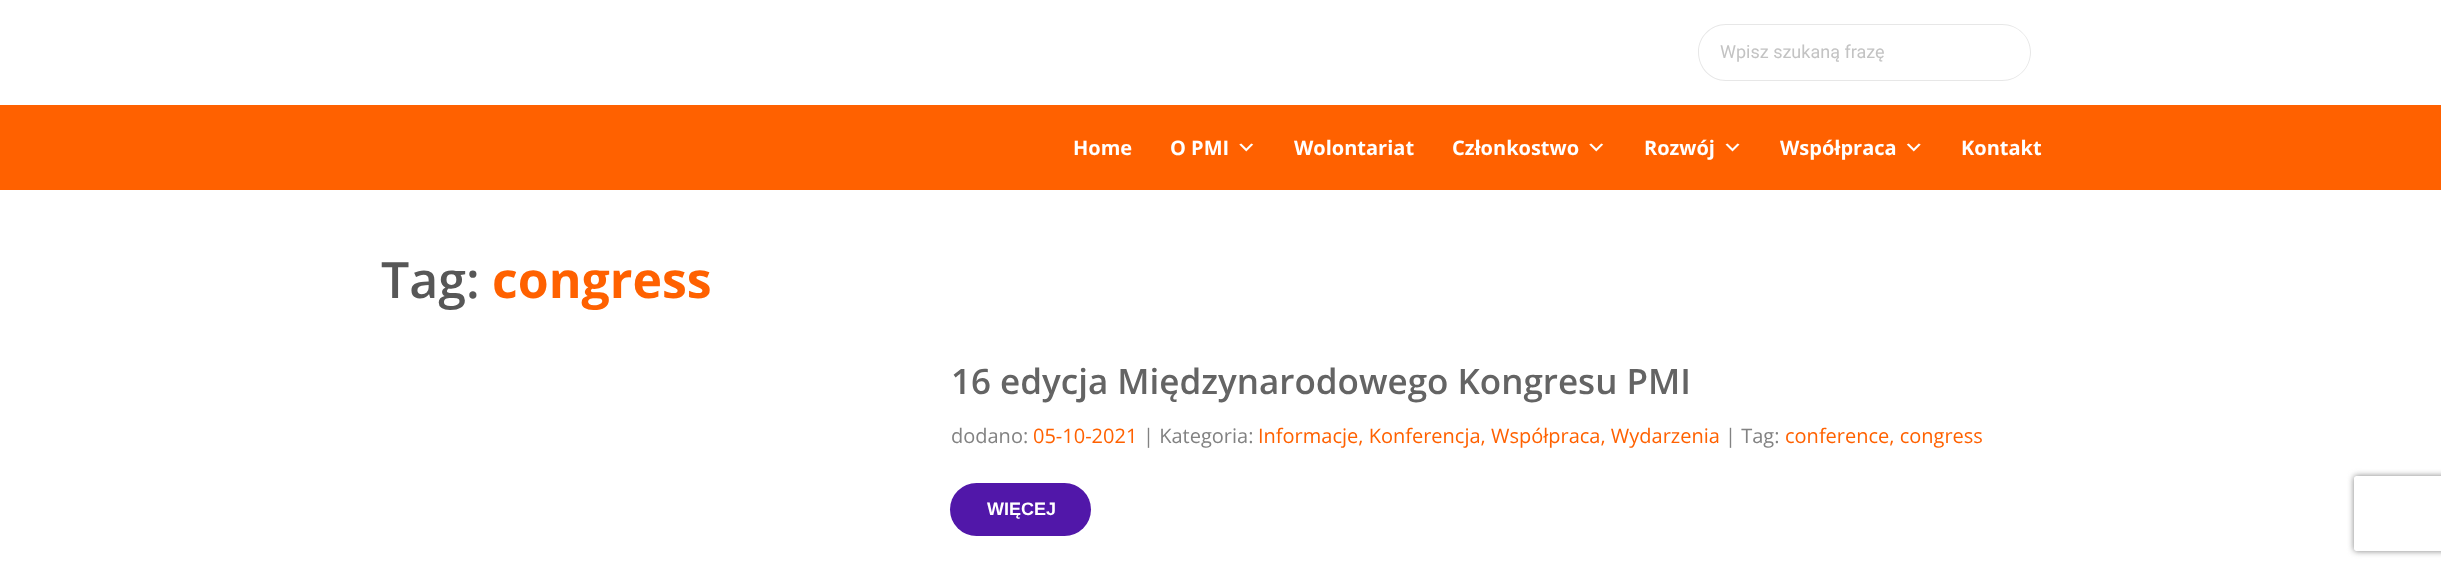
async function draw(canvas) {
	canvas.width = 2441;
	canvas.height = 568;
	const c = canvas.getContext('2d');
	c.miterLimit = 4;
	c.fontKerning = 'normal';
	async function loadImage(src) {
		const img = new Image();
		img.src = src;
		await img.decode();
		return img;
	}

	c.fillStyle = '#fff';
	c.fillRect(0, 0, 2441, 568);
	c.fillStyle = '#e7e7e7';
	c.beginPath();
	c.moveTo(1726, 24);
	c.lineTo(1959, 24);
	c.lineTo(1959, 81);
	c.lineTo(1726, 81);
	c.bezierCurveTo(1710, 81, 1698, 68, 1698, 52);
	c.bezierCurveTo(1698, 37, 1710, 24, 1726, 24);
	c.closePath();
	c.moveTo(1726, 25);
	c.lineTo(1959, 25);
	c.lineTo(1959, 80);
	c.lineTo(1726, 80);
	c.bezierCurveTo(1711, 80, 1699, 68, 1699, 52);
	c.bezierCurveTo(1699, 37, 1711, 25, 1726, 25);
	c.closePath();
	c.fill('evenodd');
	c.font = '18px Roboto';
	c.fillStyle = '#c3c3c3';
	c.fillText('Wpisz szukaną frazę', 1720, 58);
	c.fillStyle = '#fff';
	c.beginPath();
	c.roundRect(1958, 24, 73, 57, [0, 28.5, 28.5, 0]);
	c.fill();
	c.fillStyle = '#e7e7e7';
	c.beginPath();
	c.moveTo(1958, 24);
	c.lineTo(2002, 24);
	c.bezierCurveTo(2018, 24, 2031, 37, 2031, 52);
	c.bezierCurveTo(2031, 68, 2018, 81, 2002, 81);
	c.lineTo(1958, 81);
	c.closePath();
	c.moveTo(1958, 25);
	c.lineTo(2002, 25);
	c.bezierCurveTo(2018, 25, 2030, 37, 2030, 52);
	c.bezierCurveTo(2030, 68, 2018, 80, 2002, 80);
	c.lineTo(1958, 80);
	c.closePath();
	c.fill('evenodd');
	c.fillStyle = '#ff6100';
	c.fillRect(0, 105, 2441, 85);
	c.font = 'bold 20px Open Sans';
	c.fillStyle = '#fff';
	c.fillText('Home', 1073, 155);
	c.fillText('O PMI', 1170, 155);
	c.drawImage(await loadImage('img1.png'), 1239, 143, 15, 9);
	c.fillText('Wolontariat', 1294, 155);
	c.fillText('Członkostwo', 1452, 155);
	c.drawImage(await loadImage('img1.png'), 1589, 143, 15, 9);
	c.fillText('Rozwój', 1644, 155);
	c.drawImage(await loadImage('img2.png'), 1725, 143, 15, 9);
	c.fillText('Współpraca', 1780, 155);
	c.drawImage(await loadImage('img3.png'), 1906, 143, 15, 9);
	c.fillText('Kontakt', 1961, 155);
	c.font = '600 50px Open Sans';
	c.fillStyle = '#575757';
	c.fillText('Tag:', 381, 298);
	c.font = 'bold 50px Open Sans';
	c.fillStyle = '#ff6100';
	c.fillText('congress', 492, 298);
	c.font = '600 35px Open Sans';
	c.fillStyle = '#646464';
	c.fillText('16 edycja Międzynarodowego Kongresu PMI', 951, 394);
	c.font = '20px Open Sans';
	c.fillStyle = '#828282';
	c.fillText('dodano:', 951, 443);
	c.fillStyle = '#ff6100';
	c.fillText('05-10-2021', 1033, 443);
	c.fillStyle = '#828282';
	c.fillText('| Kategoria:', 1143, 443);
	c.fillStyle = '#ff6100';
	c.fillText('Informacje, Konferencja, Współpraca, Wydarzenia', 1258, 443);
	c.fillStyle = '#828282';
	c.fillText('| Tag:', 1725, 443);
	c.fillStyle = '#ff6100';
	c.fillText('conference, congress', 1785, 443);
	c.fillStyle = '#5117a9';
	c.beginPath();
	c.roundRect(950, 483, 141, 53, 26.5);
	c.fill();
	c.font = 'bold 18px Liberation Sans';
	c.fillStyle = '#fff';
	c.fillText('WIĘCEJ', 987, 515);
	c.save();
	c.beginPath();
	c.moveTo(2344, 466);
	c.lineTo(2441, 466);
	c.lineTo(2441, 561);
	c.lineTo(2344, 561);
	c.closePath();
	c.moveTo(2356.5, 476);
	c.lineTo(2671.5, 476);
	c.bezierCurveTo(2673, 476, 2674, 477, 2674, 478.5);
	c.lineTo(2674, 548.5);
	c.bezierCurveTo(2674, 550, 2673, 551, 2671.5, 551);
	c.lineTo(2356.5, 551);
	c.bezierCurveTo(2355, 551, 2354, 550, 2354, 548.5);
	c.lineTo(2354, 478.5);
	c.bezierCurveTo(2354, 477, 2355, 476, 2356.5, 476);
	c.closePath();
	c.clip('evenodd');
	c.fillStyle = '#808080';
	c.filter = 'blur(3px)';
	c.beginPath();
	c.roundRect(2354, 476, 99, 75, 2.5);
	c.fill();
	c.filter = 'none';
	c.restore();
}

draw(document.querySelector('canvas'));
